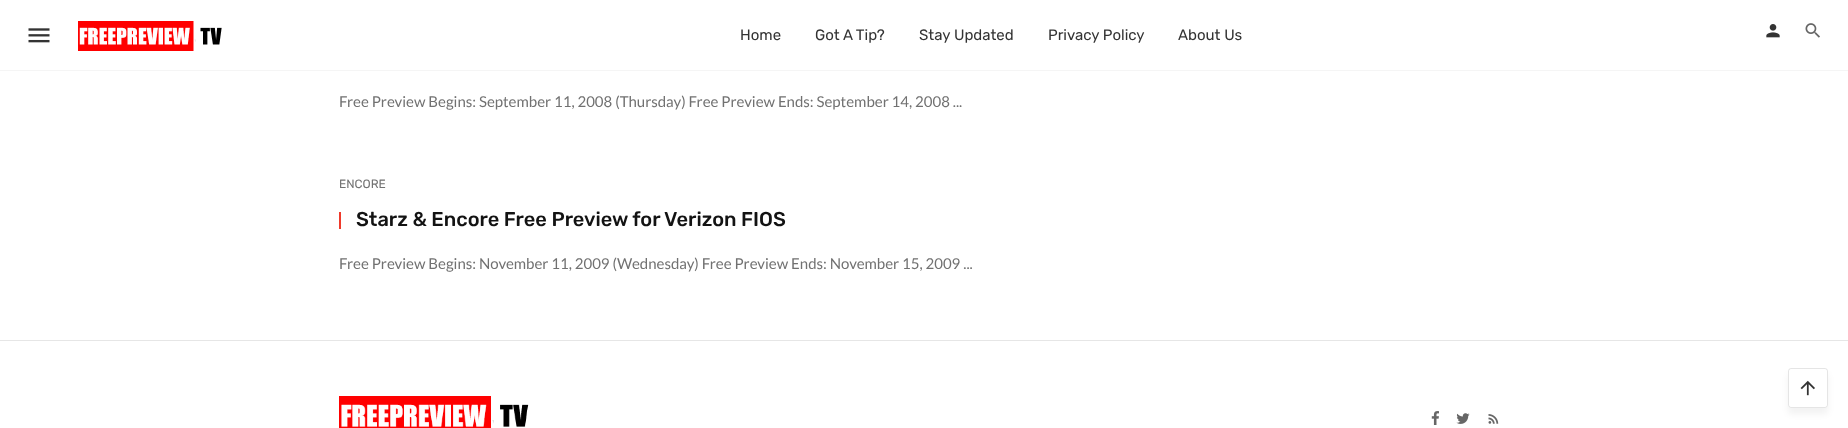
async function draw(canvas) {
	canvas.width = 1848;
	canvas.height = 428;
	const c = canvas.getContext('2d');
	c.miterLimit = 4;
	c.fontKerning = 'normal';
	async function loadImage(src) {
		const img = new Image();
		img.src = src;
		await img.decode();
		return img;
	}

	c.fillStyle = '#fff';
	c.fillRect(0, 0, 1848, 428);
	c.fillStyle = '#f5f5f5';
	c.fillRect(0, 70, 1848, 1);
	c.drawImage(await loadImage('img1.png'), 28, 28, 22, 15);
	c.drawImage(await loadImage('img2.png'), 78, 21, 144, 30);
	c.font = '15px Rubik';
	c.fillStyle = '#333';
	for (const [text, x, y] of [
		['Home', 740, 40],
		['Got A Tip?', 815, 40],
		['Stay Updated', 919, 40],
		['Privacy Policy', 1048, 40],
		['About Us', 1178, 40],
	]) {
		c.fillText(text, x, y);
	}
	c.drawImage(await loadImage('img3.png'), 1766, 24, 14, 14);
	c.drawImage(await loadImage('img4.png'), 1805, 23, 15, 15);
	c.font = '15px Lato';
	c.fillStyle = '#717171';
	c.fillText('Free Preview Begins: September 11, 2008 (Thursday) Free Preview Ends: September 14, 2008 ...', 339, 107);
	c.font = '12px Rubik';
	c.fillText('ENCORE', 339, 188);
	c.fillStyle = '#ef3a2b';
	c.fillRect(339, 212, 2, 17);
	c.font = '500 20px Rubik';
	c.fillStyle = '#131313';
	c.fillText('Starz & Encore Free Preview for Verizon FIOS', 356, 226);
	c.font = '15px Lato';
	c.fillStyle = '#717171';
	c.fillText('Free Preview Begins: November 11, 2009 (Wednesday) Free Preview Ends: November 15, 2009 ...', 339, 269);
	c.fillStyle = '#e6e6e6';
	c.fillRect(0, 340, 1848, 1);
	c.drawImage(await loadImage('img5.png'), 339, 396, 190, 32);
	c.drawImage(await loadImage('img6.png'), 1431, 411, 8, 14);
	c.drawImage(await loadImage('img7.png'), 1456, 413, 14, 11);
	c.drawImage(await loadImage('img8.png'), 1488, 414, 11, 10);
	c.fillStyle = '#0000000d';
	c.filter = 'blur(3px)';
	c.beginPath();
	c.roundRect(1788, 374, 40, 40, 3);
	c.fill();
	c.filter = 'none';
	c.fillStyle = '#fff';
	c.beginPath();
	c.roundRect(1788, 368, 40, 40, 3);
	c.fill();
	c.beginPath();
	c.roundRect(1788.5, 368.5, 39, 39, 2.5);
	c.strokeStyle = '#0000001a';
	c.stroke();
	c.drawImage(await loadImage('img9.png'), 1800, 380, 15, 16);
}

draw(document.querySelector('canvas'));
